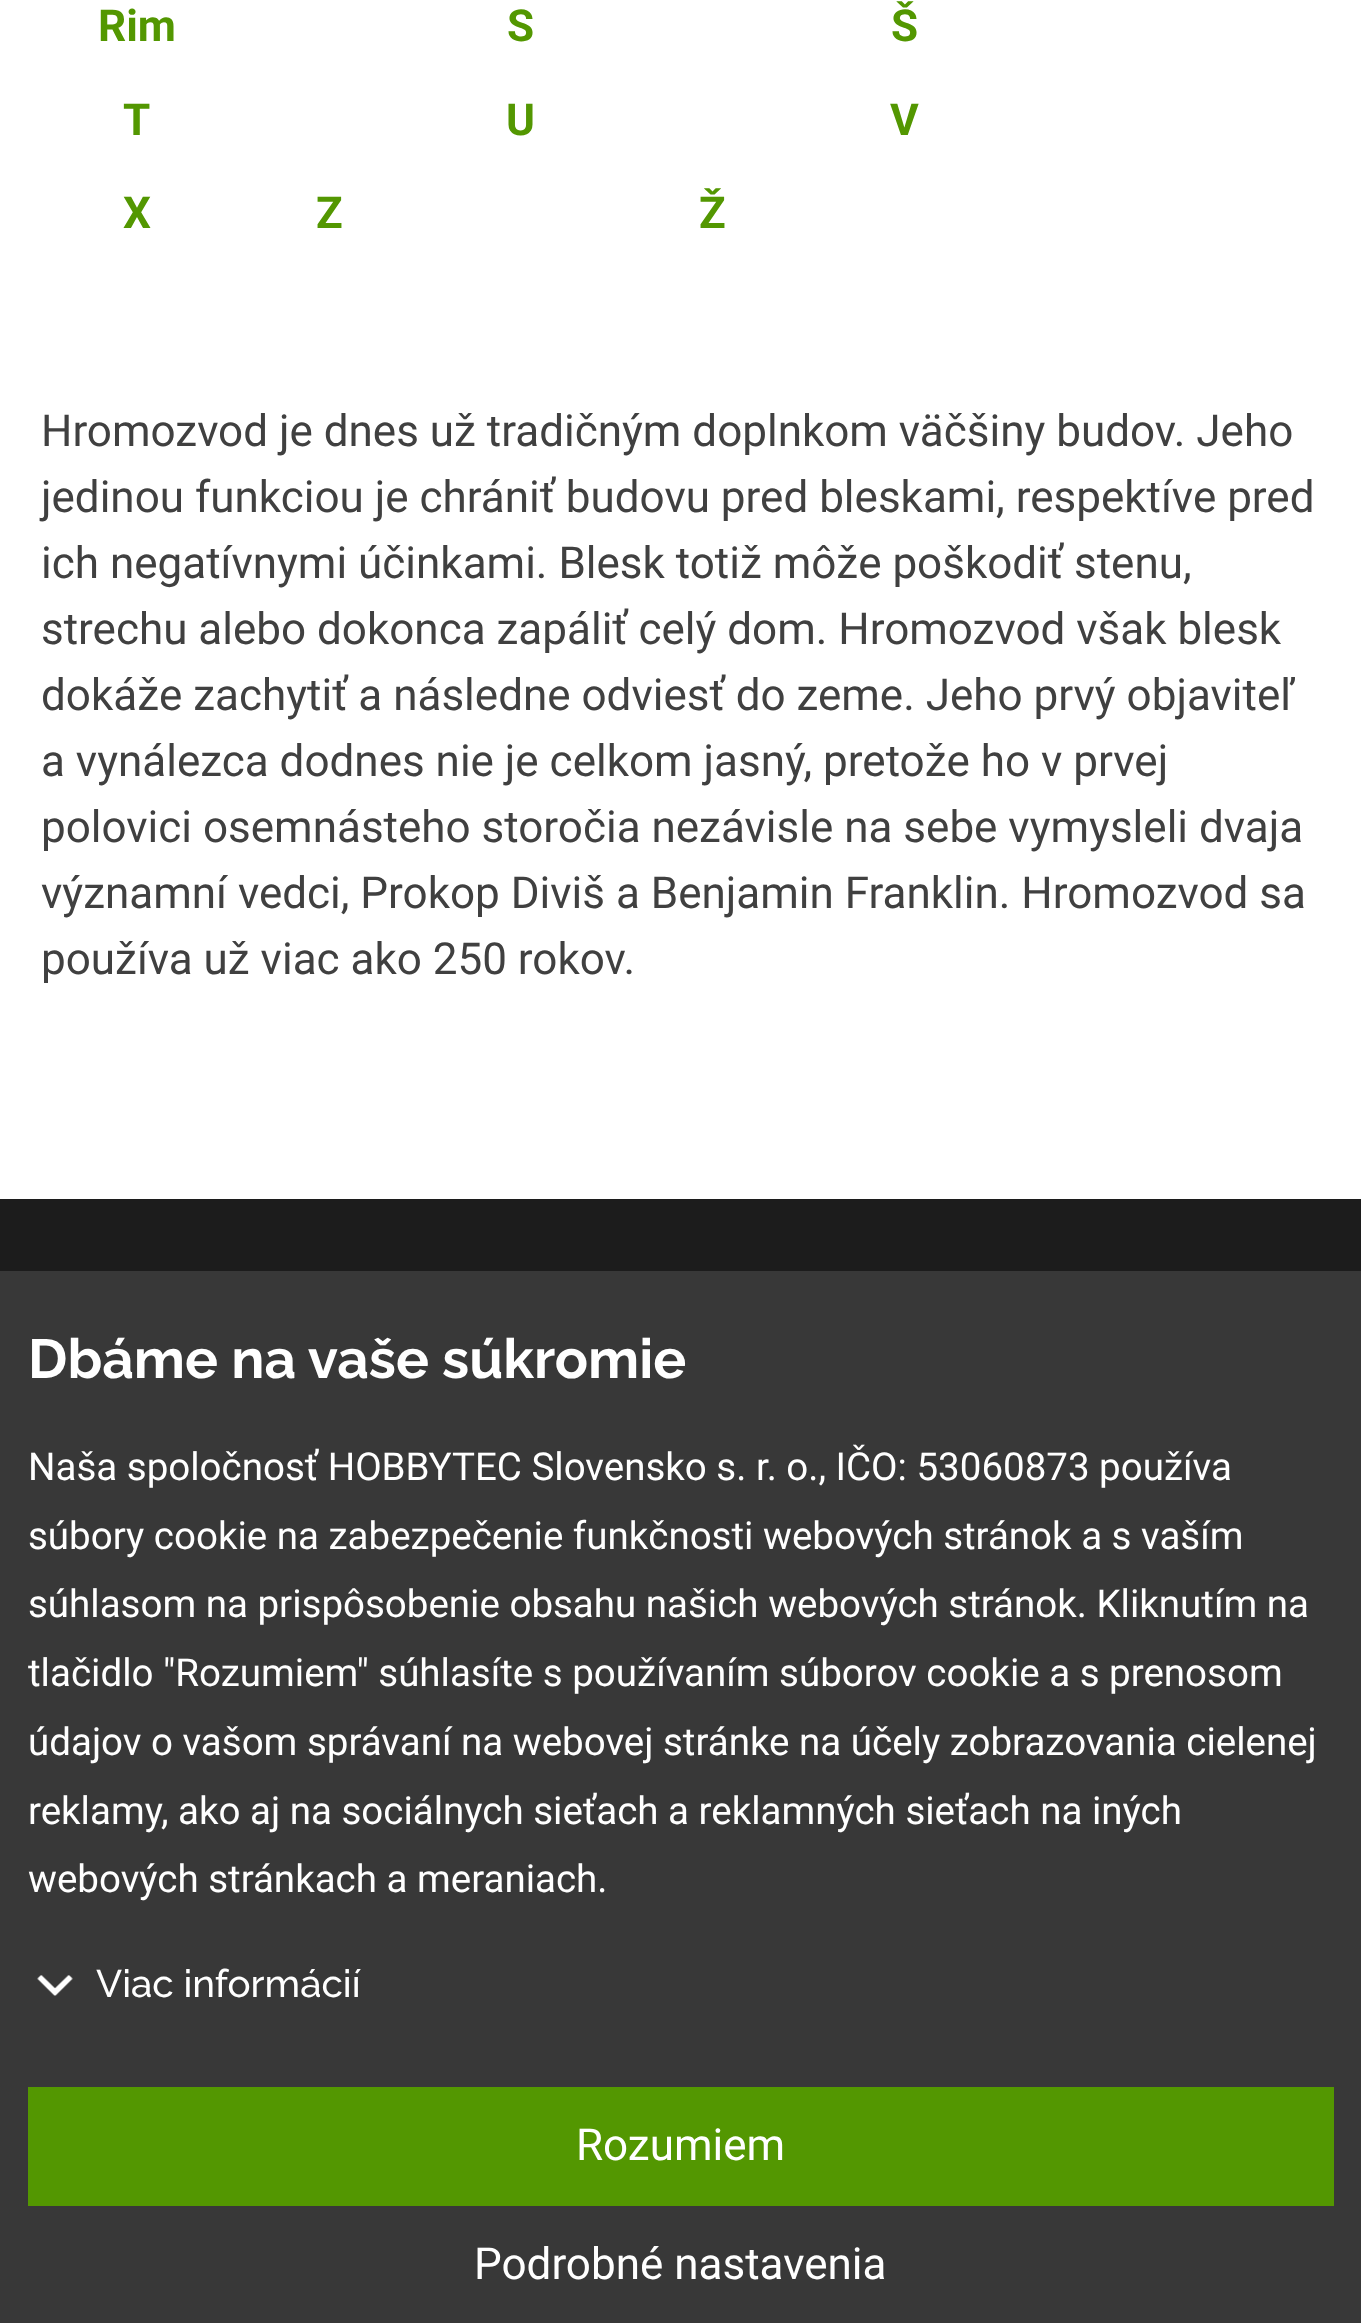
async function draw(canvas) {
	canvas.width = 1361;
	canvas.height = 2323;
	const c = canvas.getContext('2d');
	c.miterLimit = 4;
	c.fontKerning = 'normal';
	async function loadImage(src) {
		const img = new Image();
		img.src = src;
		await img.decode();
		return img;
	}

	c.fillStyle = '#fff';
	c.fillRect(0, 0, 1361, 2323);
	c.font = 'bold 44px Roboto';
	c.fillStyle = '#539701';
	for (const [text, x, y] of [
		['Rim', 98, 41],
		['S', 507, 41],
		['Š', 891, 41],
		['T', 123, 135],
		['U', 506, 135],
		['V', 890, 135],
		['X', 123, 228],
		['Z', 316, 228],
		['Ž', 699, 228],
	]) {
		c.fillText(text, x, y);
	}
	c.font = '44px Roboto';
	c.fillStyle = '#404040';
	for (const [text, x, y] of [
		['Hromozvod je dnes už tradičným doplnkom väčšiny budov. Jeho', 41, 446],
		['jedinou funkciou je chrániť budovu pred bleskami, respektíve pred', 41, 512],
		['ich negatívnymi účinkami. Blesk totiž môže poškodiť stenu,', 41, 578],
		['strechu alebo dokonca zapáliť celý dom. Hromozvod však blesk', 41, 644],
		['dokáže zachytiť a následne odviesť do zeme. Jeho prvý objaviteľ', 41, 710],
		['a vynálezca dodnes nie je celkom jasný, pretože ho v prvej', 41, 776],
		['polovici osemnásteho storočia nezávisle na sebe vymysleli dvaja', 41, 842],
		['významní vedci, Prokop Diviš a Benjamin Franklin. Hromozvod sa', 41, 908],
		['používa už viac ako 250 rokov.', 41, 974],
	]) {
		c.fillText(text, x, y);
	}
	c.fillStyle = '#1c1c1c';
	c.fillRect(0, 1199, 1361, 72);
	c.fillStyle = '#383838';
	c.fillRect(0, 1271, 1361, 1052);
	c.font = 'bold 55px Raleway';
	c.fillStyle = '#fff';
	c.fillText('Dbáme na vaše súkromie', 28, 1378);
	c.font = '38.5px Roboto';
	for (const [text, x, y] of [
		['Naša spoločnosť HOBBYTEC Slovensko s. r. o., IČO: 53060873 používa', 28, 1480],
		['súbory cookie na zabezpečenie funkčnosti webových stránok a s vaším', 28, 1549],
		['súhlasom na prispôsobenie obsahu našich webových stránok. Kliknutím na', 28, 1617],
		['tlačidlo "Rozumiem" súhlasíte s používaním súborov cookie a s prenosom', 28, 1686],
		['údajov o vašom správaní na webovej stránke na účely zobrazovania cielenej', 28, 1755],
		['reklamy, ako aj na sociálnych sieťach a reklamných sieťach na iných', 28, 1824],
		['webových stránkach a meraniach.', 28, 1892],
	]) {
		c.fillText(text, x, y);
	}
	c.drawImage(await loadImage('img1.png'), 37, 1975, 36, 21);
	c.font = '500 38.5px Raleway';
	c.fillText('Viac informácií', 96, 1997);
	c.fillStyle = '#539701';
	c.fillRect(28, 2087, 1306, 119);
	c.font = '44px Roboto';
	c.fillStyle = '#fff';
	c.fillText('Rozumiem', 576, 2160);
	c.fillText('Podrobné nastavenia', 474, 2279);
}

draw(document.querySelector('canvas'));
